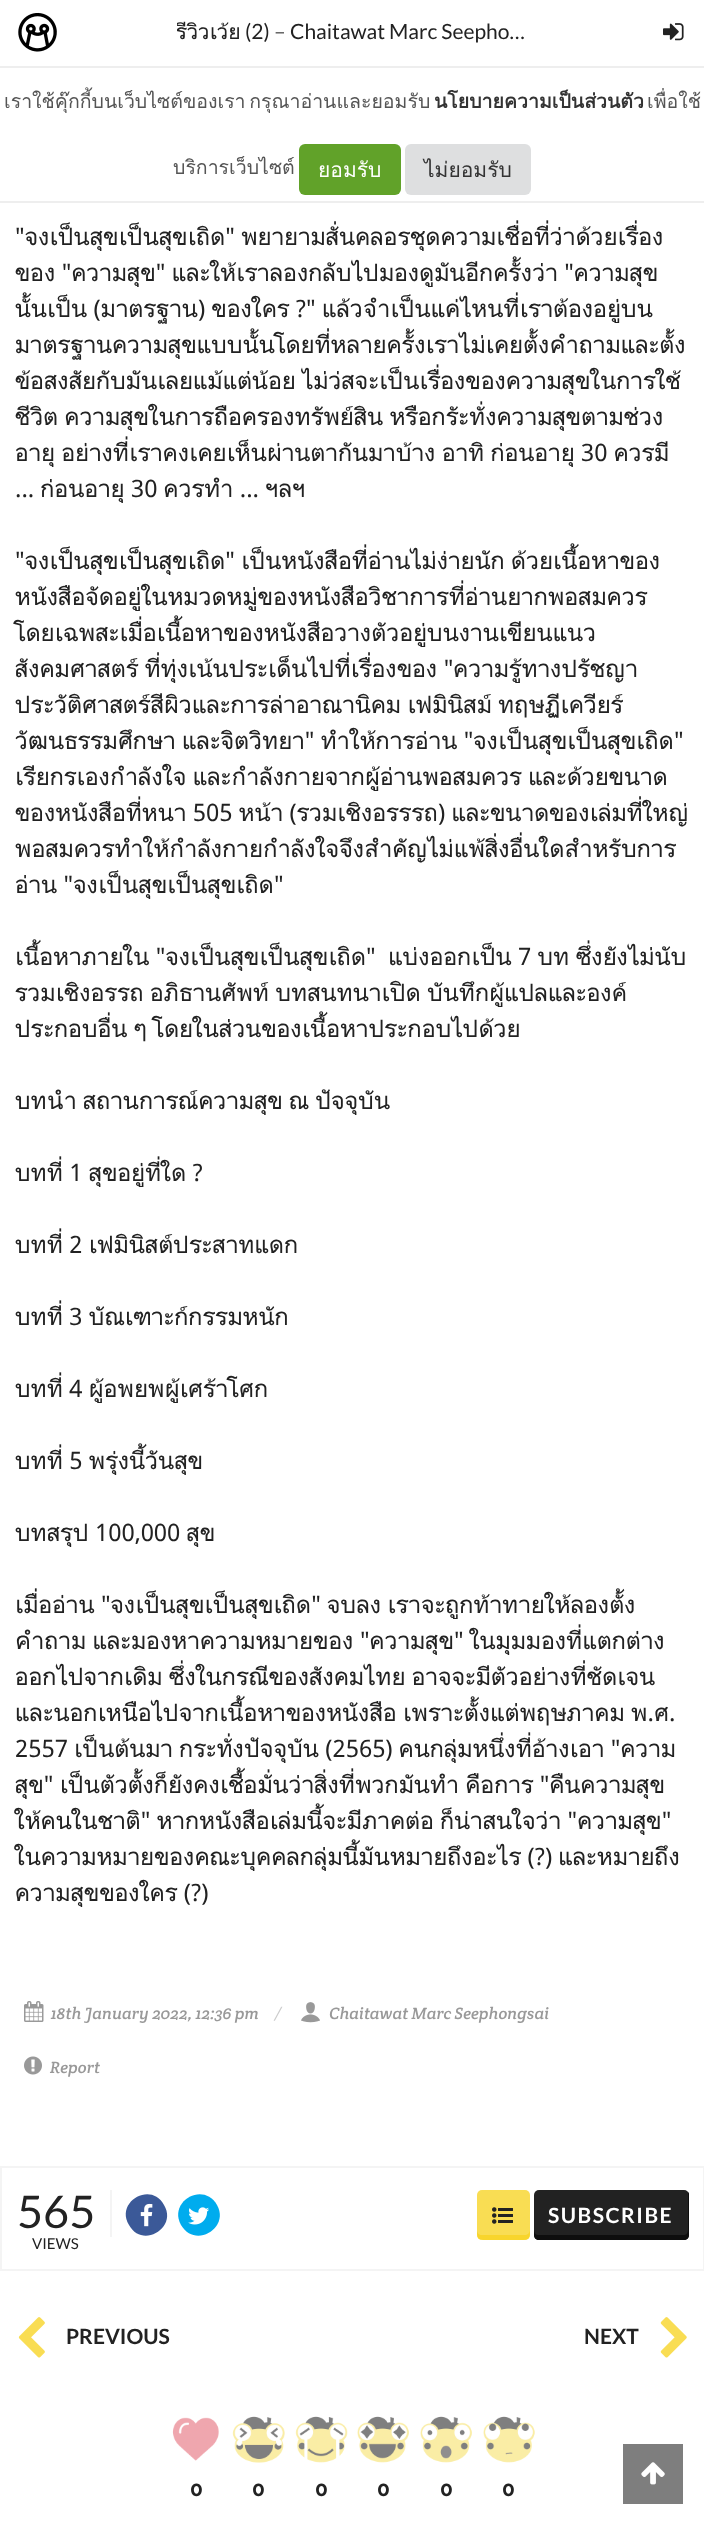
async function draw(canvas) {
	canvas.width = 704;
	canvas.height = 2526;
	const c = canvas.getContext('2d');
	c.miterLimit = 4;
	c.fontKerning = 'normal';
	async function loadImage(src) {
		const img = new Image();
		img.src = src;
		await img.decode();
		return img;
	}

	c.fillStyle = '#fff';
	c.fillRect(0, 0, 704, 2526);
	c.fillStyle = '#eee';
	c.fillRect(0, 66, 704, 2);
	c.drawImage(await loadImage('img1.png'), 18, 12, 39, 40);
	c.drawImage(await loadImage('img2.png'), 663, 23, 21, 18);
	c.save();
	c.beginPath();
	c.rect(177, 0, 353, 47);
	c.clip();
	c.font = '21px Droid Sans';
	c.fillStyle = '#222';
	c.fillText('รีวิวเว้ย', 176, 39);
	c.restore();
	c.font = '21px Lato';
	c.fillStyle = '#222';
	c.fillText('(2)', 245, 39);
	c.fillStyle = '#555';
	c.fillText('–', 274, 39);
	c.fillStyle = '#222';
	c.fillText('Chaitawat Marc Seepho…', 290, 39);
	c.font = '24px Droid Sans';
	for (const [text, x, y] of [
		['"จงเป็นสุขเป็นสุขเถิด" พยายามสั่นคลอรชุดความเชื่อที่ว่าด้วยเรื่อง', 15, 245],
		['ของ "ความสุข" และให้เราลองกลับไปมองดูมันอีกครั้งว่า "ความสุข', 15, 281],
		['นั้นเป็น (มาตรฐาน) ของใคร ?" แล้วจำเป็นแค่ไหนที่เราต้องอยู่บน', 15, 317],
		['มาตรฐานความสุขแบบนั้นโดยที่หลายครั้งเราไม่เคยตั้งคำถามและตั้ง', 15, 353],
		['ข้อสงสัยกับมันเลยแม้แต่น้อย ไม่ว่สจะเป็นเรื่องของความสุขในการใช้', 15, 389],
		['ชีวิต ความสุขในการถือครองทรัพย์สิน หรือกรัะทั่งความสุขตามช่วง', 15, 425],
		['อายุ อย่างที่เราคงเคยเห็นผ่านตากันมาบ้าง อาทิ ก่อนอายุ 30 ควรมี', 15, 461],
		['... ก่อนอายุ 30 ควรทำ ... ฯลฯ', 15, 497],
		['"จงเป็นสุขเป็นสุขเถิด" เป็นหนังสือที่อ่านไม่ง่ายนัก ด้วยเนื้อหาของ', 15, 569],
		['หนังสือจัดอยู่ในหมวดหมู่ของหนังสือวิชาการที่อ่านยากพอสมควร', 15, 605],
		['โดยเฉพสะเมื่อเนื้อหาของหนังสือวางตัวอยู่บนงานเขียนแนว', 15, 641],
		['สังคมศาสตร์ ที่ทุ่งเน้นประเด็นไปที่เรื่องของ "ความรู้ทางปรัชญา', 15, 677],
		['ประวัติศาสตร์สีผิวและการล่าอาณานิคม เฟมินิสม์ ทฤษฏีเควียร์', 15, 713],
		['วัฒนธรรมศึกษา และจิตวิทยา" ทำให้การอ่าน "จงเป็นสุขเป็นสุขเถิด"', 15, 749],
		['เรียกรเองกำลังใจ และกำลังกายจากผู้อ่านพอสมควร และด้วยขนาด', 15, 785],
		['ของหนังสือที่หนา 505 หน้า (รวมเชิงอรรรถ) และขนาดของเล่มที่ใหญ่', 15, 821],
		['พอสมควรทำให้กำลังกายกำลังใจจึงสำคัญไม่แพ้สิ่งอื่นใดสำหรับการ', 15, 857],
		['อ่าน "จงเป็นสุขเป็นสุขเถิด"', 15, 893],
		['เนื้อหาภายใน "จงเป็นสุขเป็นสุขเถิด"  แบ่งออกเป็น 7 บท ซึ่งยังไม่นับ', 15, 965],
		['รวมเชิงอรรถ อภิธานศัพท์ บทสนทนาเปิด บันทึกผู้แปลและองค์', 15, 1001],
		['ประกอบอื่น ๆ โดยในส่วนของเนื้อหาประกอบไปด้วย', 15, 1037],
		['บทนำ สถานการณ์ความสุข ณ ปัจจุบัน', 15, 1109],
		['บทที่ 1 สุขอยู่ที่ใด ?', 15, 1181],
		['บทที่ 2 เฟมินิสต์ประสาทแดก', 15, 1253],
		['บทที่ 3 บัณเฑาะก์กรรมหนัก', 15, 1325],
		['บทที่ 4 ผู้อพยพผู้เศร้าโศก', 15, 1397],
		['บทที่ 5 พรุ่งนี้วันสุข', 15, 1469],
		['บทสรุป 100,000 สุข', 15, 1541],
		['เมื่ออ่าน "จงเป็นสุขเป็นสุขเถิด" จบลง เราจะถูกท้าทายให้ลองตั้ง', 15, 1613],
		['คำถาม และมองหาความหมายของ "ความสุข" ในมุมมองที่แตกต่าง', 15, 1649],
		['ออกไปจากเดิม ซึ่งในกรณีของสังคมไทย อาจจะมีตัวอย่างที่ชัดเจน', 15, 1685],
		['และนอกเหนือไปจากเนื้อหาของหนังสือ เพราะตั้งแต่พฤษภาคม พ.ศ.', 15, 1721],
		['2557 เป็นต้นมา กระทั่งปัจจุบัน (2565) คนกลุ่มหนึ่งที่อ้างเอา "ความ', 15, 1757],
		['สุข" เป็นตัวตั้งก็ยังคงเชื้อมั่นว่าสิ่งที่พวกมันทำ คือการ "คืนความสุข', 15, 1793],
		['ให้คนในชาติ" หากหนังสือเล่มนี้จะมีภาคต่อ ก็น่าสนใจว่า "ความสุข"', 15, 1829],
		['ในความหมายของคณะบุคคลกลุ่มนี้มันหมายถึงอะไร (?) และหมายถึง', 15, 1865],
		['ความสุขของใคร (?)', 15, 1901],
	]) {
		c.fillText(text, x, y);
	}
	c.drawImage(await loadImage('img3.png'), 24, 2001, 20, 21);
	c.font = 'italic 16.5px Crete Round';
	c.fillStyle = '#999';
	c.fillText('18th January 2022, 12:36 pm', 51, 2019);
	c.fillStyle = '#ccc';
	c.fillText('/', 274, 2019);
	c.drawImage(await loadImage('img4.png'), 301, 2002, 19, 21);
	c.fillStyle = '#999';
	c.fillText('Chaitawat Marc Seephongsai', 329, 2019);
	c.drawImage(await loadImage('img5.png'), 24, 2056, 18, 19);
	c.fillText('Report', 50, 2073);
	c.strokeStyle = '#f4f4f4';
	c.lineWidth = 2;
	c.strokeRect(1, 2167, 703, 103);
	c.fillStyle = '#f4f4f4';
	c.fillRect(110, 2190, 2, 47);
	c.font = '45px Lato';
	c.fillStyle = '#222';
	c.fillText('565', 17, 2228);
	c.font = '15px Lato';
	c.fillText('VIEWS', 32, 2249);
	c.fillStyle = '#3b5998';
	c.beginPath();
	c.moveTo(164, 2205);
	c.bezierCurveTo(178, 2228, 142, 2249, 129, 2225);
	c.bezierCurveTo(115, 2202, 151, 2181, 164, 2205);
	c.closePath();
	c.fill();
	c.drawImage(await loadImage('img6.png'), 140, 2203, 13, 24);
	c.fillStyle = '#00acee';
	c.beginPath();
	c.moveTo(217, 2205);
	c.bezierCurveTo(230, 2228, 195, 2249, 181, 2225);
	c.bezierCurveTo(168, 2202, 203, 2181, 217, 2205);
	c.closePath();
	c.fill();
	c.drawImage(await loadImage('img7.png'), 188, 2207, 21, 18);
	c.fillStyle = '#f9dd53';
	c.beginPath();
	c.roundRect(477, 2190, 53, 50, 5);
	c.fill();
	c.fillStyle = '#f8d52c';
	c.beginPath();
	c.moveTo(477, 2230);
	c.bezierCurveTo(477, 2240, 478, 2240, 489, 2240);
	c.lineTo(518, 2240);
	c.bezierCurveTo(529, 2240, 530, 2240, 530, 2230);
	c.bezierCurveTo(530, 2233, 527, 2235, 525, 2235);
	c.lineTo(482, 2235);
	c.bezierCurveTo(479, 2235, 477, 2233, 477, 2230);
	c.closePath();
	c.fill();
	c.drawImage(await loadImage('img8.png'), 492, 2207, 21, 17);
	c.fillStyle = '#222';
	c.beginPath();
	c.roundRect(534, 2190, 155, 50, 5);
	c.fill();
	c.fillStyle = '#0e0e0e';
	c.beginPath();
	c.moveTo(534, 2230);
	c.lineTo(534, 2235);
	c.bezierCurveTo(534, 2238, 536, 2240, 539, 2240);
	c.lineTo(684, 2240);
	c.bezierCurveTo(687, 2240, 689, 2238, 689, 2235);
	c.lineTo(689, 2195);
	c.bezierCurveTo(689, 2194, 689, 2193, 688, 2192);
	c.lineTo(688, 2230);
	c.bezierCurveTo(688, 2233, 686, 2235, 684, 2235);
	c.lineTo(538, 2235);
	c.bezierCurveTo(536, 2235, 534, 2233, 534, 2230);
	c.closePath();
	c.fill();
	c.letterSpacing = '1.5px';
	c.font = 'bold 21px Lato';
	c.fillStyle = '#fff';
	c.fillText('SUBSCRIBE', 548, 2223);
	c.drawImage(await loadImage('img9.png'), 18, 2317, 27, 41);
	c.letterSpacing = '0px';
	c.fillStyle = '#222';
	c.fillText('PREVIOUS', 66, 2344);
	c.fillText('NEXT', 584, 2344);
	c.drawImage(await loadImage('img10.png'), 660, 2317, 27, 41);
	c.drawImage(await loadImage('img11.png'), 172, 2417, 47, 44);
	c.font = 'bold 21px Raleway';
	c.fillText('0', 190, 2496);
	c.drawImage(await loadImage('img12.png'), 232, 2416, 53, 47);
	c.fillText('0', 252, 2496);
	c.drawImage(await loadImage('img13.png'), 295, 2416, 53, 47);
	c.fillText('0', 315, 2496);
	c.drawImage(await loadImage('img14.png'), 357, 2416, 52, 47);
	c.fillText('0', 377, 2496);
	c.drawImage(await loadImage('img15.png'), 420, 2416, 52, 47);
	c.fillText('0', 440, 2496);
	c.drawImage(await loadImage('img16.png'), 483, 2416, 52, 47);
	c.fillText('0', 502, 2496);
	c.fillStyle = '#7e7e7e';
	c.fillRect(623, 2444, 60, 60);
	c.drawImage(await loadImage('img17.png'), 641, 2462, 24, 23);
	c.fillStyle = '#eee';
	c.fillRect(0, 201, 704, 2);
	c.wordSpacing = '-3px';
	c.font = '19.5px Loma';
	c.fillStyle = '#555';
	c.fillText('เราใช้คุ๊กกี้บนเว็บไซต์ของเรา กรุณาอ่านและยอมรับ', 4, 108);
	c.wordSpacing = '0px';
	c.font = 'bold 19.5px Loma';
	c.fillStyle = '#333';
	c.fillText('นโยบายความเป็นส่วนตัว', 434, 108);
	c.font = '19.5px Loma';
	c.fillStyle = '#555';
	c.fillText('เพื่อใช้', 647, 108);
	c.fillText('บริการเว็บไซต์', 173, 174);
	c.fillStyle = '#61a229';
	c.beginPath();
	c.roundRect(299, 144, 102, 51, 6);
	c.fill();
	c.font = '21px Loma';
	c.fillStyle = '#fff';
	c.fillText('ยอมรับ', 318, 177);
	c.fillStyle = '#dedfe0';
	c.beginPath();
	c.roundRect(405, 144, 126, 51, 6);
	c.fill();
	c.fillStyle = '#333';
	c.fillText('ไม่ยอมรับ', 424, 177);
}

draw(document.querySelector('canvas'));
